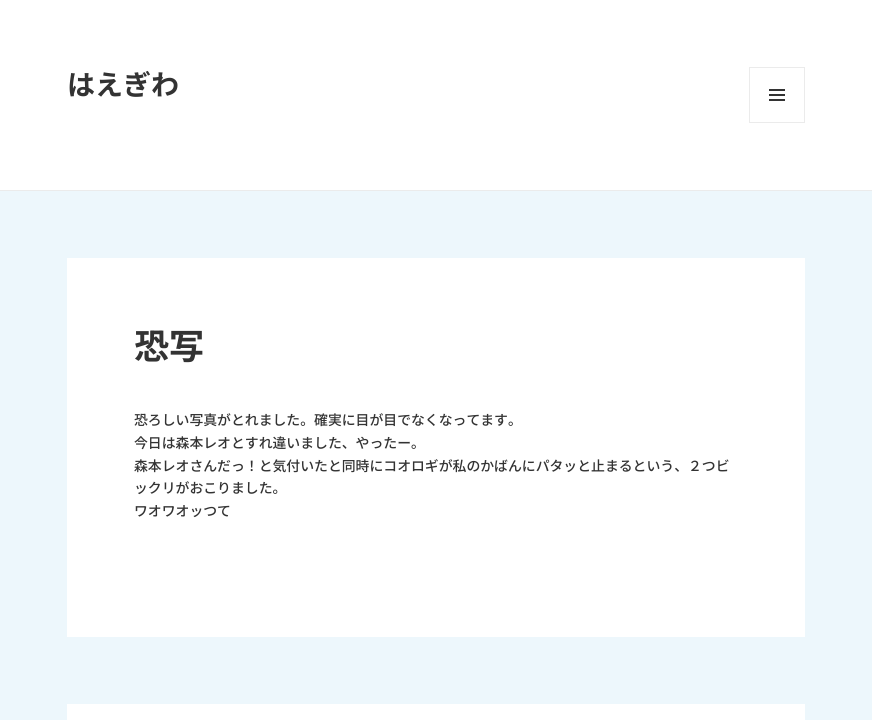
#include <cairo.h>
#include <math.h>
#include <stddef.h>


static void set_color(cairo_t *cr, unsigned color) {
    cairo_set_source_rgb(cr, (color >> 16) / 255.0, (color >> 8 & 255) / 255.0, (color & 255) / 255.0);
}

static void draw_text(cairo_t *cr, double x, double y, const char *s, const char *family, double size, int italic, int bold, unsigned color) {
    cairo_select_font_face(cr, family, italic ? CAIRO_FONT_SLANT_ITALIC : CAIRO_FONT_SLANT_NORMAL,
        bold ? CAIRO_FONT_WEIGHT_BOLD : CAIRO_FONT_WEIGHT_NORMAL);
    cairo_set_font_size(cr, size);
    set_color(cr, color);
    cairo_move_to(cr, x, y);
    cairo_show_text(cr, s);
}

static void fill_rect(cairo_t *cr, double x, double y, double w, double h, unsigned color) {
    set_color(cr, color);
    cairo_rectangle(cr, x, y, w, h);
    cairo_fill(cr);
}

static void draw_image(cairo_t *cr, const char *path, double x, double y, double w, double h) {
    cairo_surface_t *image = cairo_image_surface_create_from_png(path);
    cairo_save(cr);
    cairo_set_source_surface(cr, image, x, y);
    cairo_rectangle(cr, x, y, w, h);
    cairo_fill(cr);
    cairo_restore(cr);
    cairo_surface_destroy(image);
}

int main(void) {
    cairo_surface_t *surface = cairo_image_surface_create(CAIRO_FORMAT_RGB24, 872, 720);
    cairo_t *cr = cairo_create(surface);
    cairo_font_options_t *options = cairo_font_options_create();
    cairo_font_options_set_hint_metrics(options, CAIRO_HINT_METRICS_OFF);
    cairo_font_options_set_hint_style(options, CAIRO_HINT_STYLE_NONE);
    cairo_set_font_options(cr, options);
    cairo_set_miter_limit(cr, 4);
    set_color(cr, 0xEDF7FC);
    cairo_paint(cr);
    fill_rect(cr, 0, 0, 872, 190, 0xFFFFFF);
    fill_rect(cr, 0, 190, 872, 1, 0xEBEBEB);
    draw_text(cr, 67, 95, "はえぎわ", "Noto Sans JP", 28, 0, 1, 0x333333);
    cairo_rectangle(cr, 749.5, 67.5, 55, 55);
    set_color(cr, 0xEBEBEB);
    cairo_set_line_width(cr, 1);
    cairo_stroke(cr);
    draw_image(cr, "assets/img1.png", 769, 89, 16, 12);
    fill_rect(cr, 67, 258, 738, 379, 0xFFFFFF);
    draw_text(cr, 134, 359, "恐写", "Noto Sans JP", 35, 0, 1, 0x333333);
    draw_text(cr, 134, 425, "恐ろしい写真がとれました。確実に目が目でなくなってます。", "Noto Sans JP Medium", 13.85, 0, 0, 0x333333);
    draw_text(cr, 134, 448, "今日は森本レオとすれ違いました、やったー。", "Noto Sans JP Medium", 13.85, 0, 0, 0x333333);
    draw_text(cr, 134, 471, "森本レオさんだっ！と気付いたと同時にコオロギが私のかばんにパタッと止まるという、２つビ", "Noto Sans JP Medium", 13.85, 0, 0, 0x333333);
    draw_text(cr, 134, 493, "ックリがおこりました。", "Noto Sans JP Medium", 13.85, 0, 0, 0x333333);
    draw_text(cr, 134, 516, "ワオワオッつて", "Noto Sans JP Medium", 13.85, 0, 0, 0x333333);
    fill_rect(cr, 67, 704, 738, 16, 0xFFFFFF);
    cairo_surface_write_to_png(surface, "output.png");
    cairo_font_options_destroy(options);
    cairo_destroy(cr);
    cairo_surface_destroy(surface);
    return 0;
}
